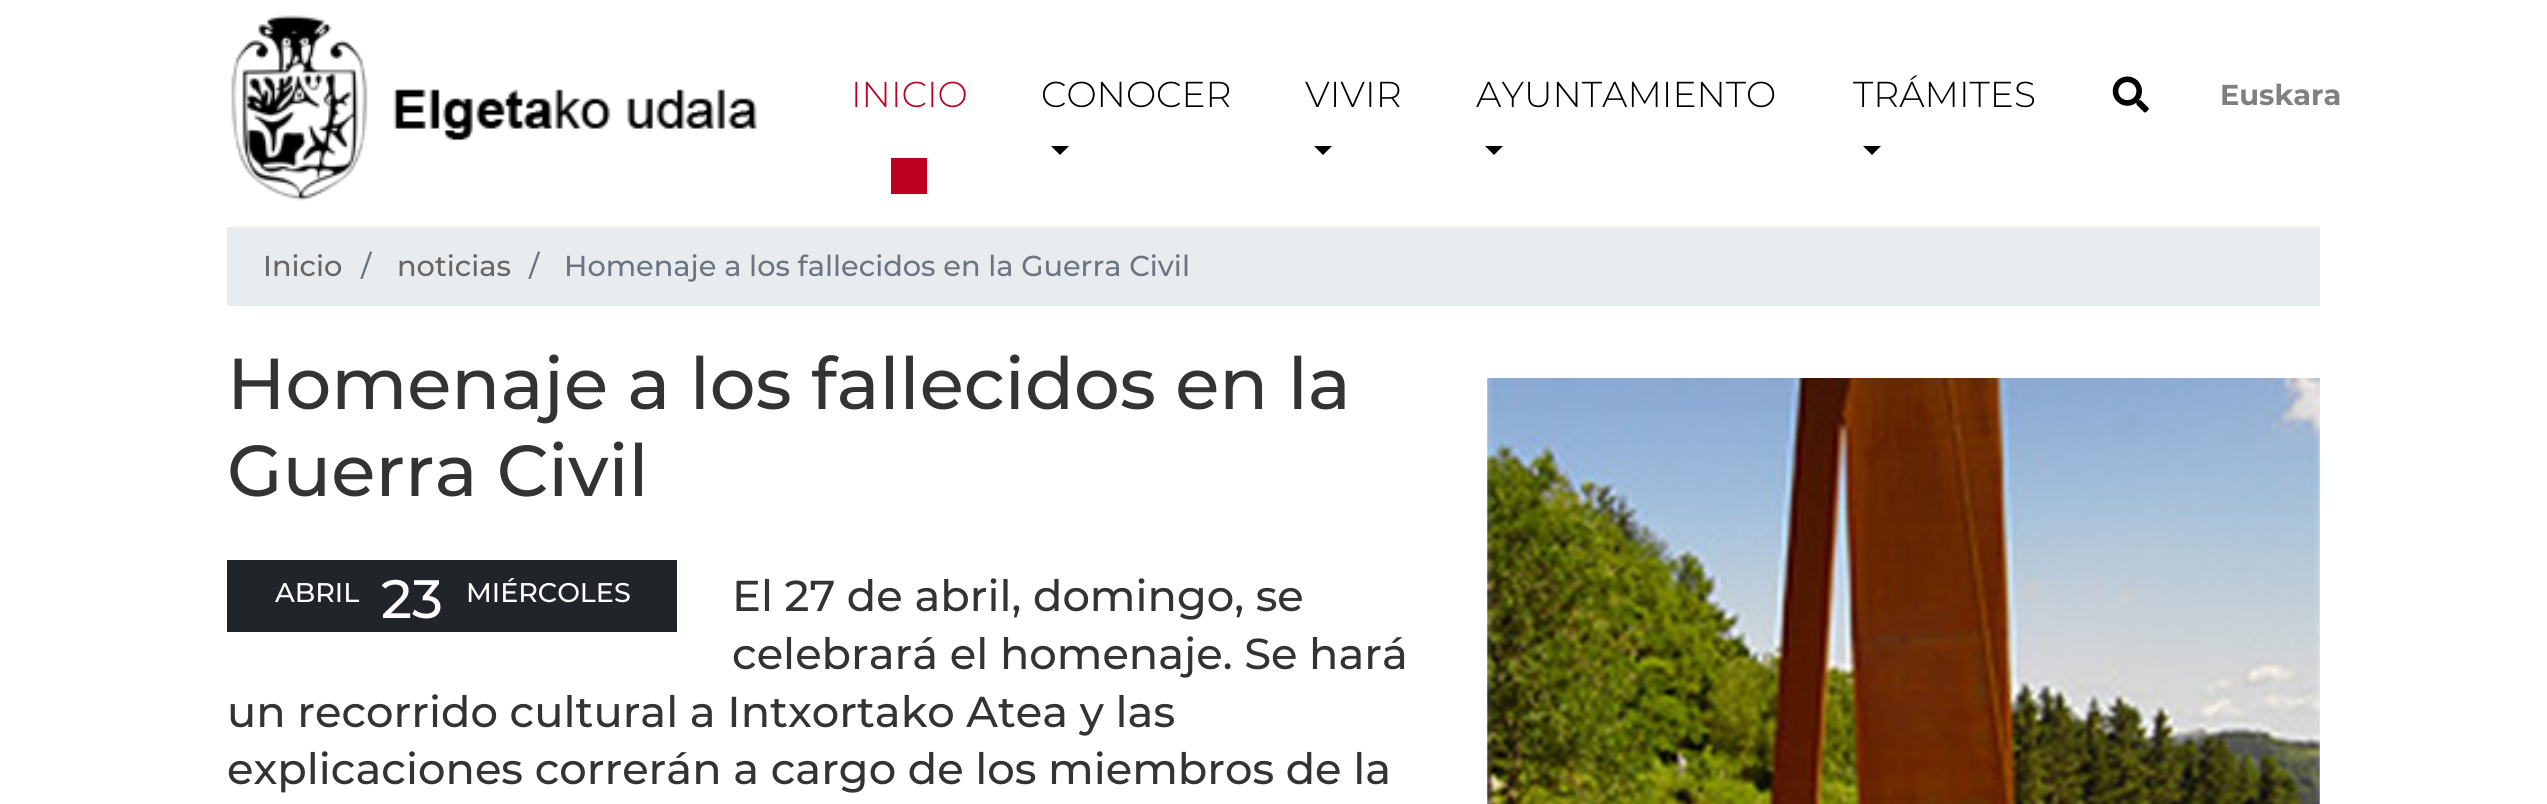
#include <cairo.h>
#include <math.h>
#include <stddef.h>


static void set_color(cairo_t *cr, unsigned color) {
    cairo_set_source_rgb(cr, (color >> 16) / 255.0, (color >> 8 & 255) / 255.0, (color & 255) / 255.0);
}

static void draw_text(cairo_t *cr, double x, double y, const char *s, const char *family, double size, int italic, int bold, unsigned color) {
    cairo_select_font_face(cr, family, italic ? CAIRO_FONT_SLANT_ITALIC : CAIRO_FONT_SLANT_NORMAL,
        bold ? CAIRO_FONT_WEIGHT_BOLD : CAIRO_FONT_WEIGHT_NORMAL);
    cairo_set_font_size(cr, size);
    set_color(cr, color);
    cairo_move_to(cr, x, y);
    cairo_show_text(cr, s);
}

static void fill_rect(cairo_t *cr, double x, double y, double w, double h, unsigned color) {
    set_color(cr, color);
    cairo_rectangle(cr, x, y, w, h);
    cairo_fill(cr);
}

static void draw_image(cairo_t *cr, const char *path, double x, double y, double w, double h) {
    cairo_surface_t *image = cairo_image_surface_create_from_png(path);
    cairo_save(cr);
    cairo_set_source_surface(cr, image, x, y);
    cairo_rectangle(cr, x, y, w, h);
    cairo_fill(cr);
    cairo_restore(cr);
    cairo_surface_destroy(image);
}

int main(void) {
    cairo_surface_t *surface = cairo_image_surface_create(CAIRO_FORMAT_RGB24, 2547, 804);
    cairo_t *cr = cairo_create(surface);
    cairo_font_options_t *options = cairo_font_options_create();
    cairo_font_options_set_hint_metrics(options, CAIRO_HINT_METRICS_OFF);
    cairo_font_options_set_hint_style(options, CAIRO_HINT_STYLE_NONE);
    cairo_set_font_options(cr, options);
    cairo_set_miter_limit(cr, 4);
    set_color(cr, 0xFFFFFF);
    cairo_paint(cr);
    draw_image(cr, "assets/img1.png", 231, 15, 526, 186);
    draw_text(cr, 851, 107, "INICIO", "Montserrat Light", 36, 0, 0, 0xBD0020);
    fill_rect(cr, 891, 158, 36, 36, 0xBD0020);
    draw_text(cr, 1041, 107, "CONOCER", "Montserrat Light", 36, 0, 0, 0x000000);
    cairo_new_path(cr);
    cairo_move_to(cr, 1051, 146);
    cairo_line_to(cr, 1069, 146);
    cairo_line_to(cr, 1060, 155);
    cairo_close_path(cr);
    cairo_fill(cr);
    draw_text(cr, 1305, 107, "VIVIR", "Montserrat Light", 36, 0, 0, 0x000000);
    cairo_new_path(cr);
    cairo_move_to(cr, 1314, 146);
    cairo_line_to(cr, 1332, 146);
    cairo_line_to(cr, 1323, 155);
    cairo_close_path(cr);
    cairo_fill(cr);
    draw_text(cr, 1476, 107, "AYUNTAMIENTO", "Montserrat Light", 36, 0, 0, 0x000000);
    cairo_new_path(cr);
    cairo_move_to(cr, 1485, 146);
    cairo_line_to(cr, 1503, 146);
    cairo_line_to(cr, 1494, 155);
    cairo_close_path(cr);
    cairo_fill(cr);
    draw_text(cr, 1853, 107, "TRÁMITES", "Montserrat Light", 36, 0, 0, 0x000000);
    cairo_new_path(cr);
    cairo_move_to(cr, 1863, 146);
    cairo_line_to(cr, 1881, 146);
    cairo_line_to(cr, 1872, 155);
    cairo_close_path(cr);
    cairo_fill(cr);
    draw_image(cr, "assets/img2.png", 2112, 76, 37, 37);
    draw_text(cr, 2220, 105, "Euskara", "Montserrat", 28.8, 0, 1, 0x808080);
    fill_rect(cr, 227, 227, 2093, 79, 0xE9ECEF);
    draw_text(cr, 263, 276, "Inicio", "Montserrat Medium", 28.8, 0, 0, 0x666666);
    draw_text(cr, 361, 276, "/", "Montserrat Medium", 28.8, 0, 0, 0x6C757D);
    draw_text(cr, 397, 276, "noticias", "Montserrat Medium", 28.8, 0, 0, 0x666666);
    draw_text(cr, 529, 276, "/", "Montserrat Medium", 28.8, 0, 0, 0x6C757D);
    draw_text(cr, 564, 276, "Homenaje a los fallecidos en la Guerra Civil", "Montserrat Medium", 28.8, 0, 0, 0x6C757D);
    draw_text(cr, 227, 409, "Homenaje a los fallecidos en la", "Montserrat Medium", 72, 0, 0, 0x333333);
    draw_text(cr, 227, 496, "Guerra Civil", "Montserrat Medium", 72, 0, 0, 0x333333);
    draw_text(cr, 732, 611, "El 27 de abril, domingo, se", "Montserrat Medium", 43.2, 0, 0, 0x333333);
    draw_text(cr, 732, 669, "celebrará el homenaje. Se hará", "Montserrat Medium", 43.2, 0, 0, 0x333333);
    draw_text(cr, 227, 727, "un recorrido cultural a Intxortako Atea y las", "Montserrat Medium", 43.2, 0, 0, 0x333333);
    draw_text(cr, 227, 784, "explicaciones correrán a cargo de los miembros de la", "Montserrat Medium", 43.2, 0, 0, 0x333333);
    fill_rect(cr, 227, 560, 450, 72, 0x212529);
    draw_text(cr, 275, 602, "ABRIL", "Montserrat Medium", 27, 0, 0, 0xFFFFFF);
    draw_text(cr, 381, 618, "23", "Montserrat Medium", 54, 0, 0, 0xFFFFFF);
    draw_text(cr, 466, 602, "MIÉRCOLES", "Montserrat Medium", 27, 0, 0, 0xFFFFFF);
    draw_image(cr, "assets/img3.png", 1487, 378, 833, 426);
    cairo_surface_write_to_png(surface, "output.png");
    cairo_font_options_destroy(options);
    cairo_destroy(cr);
    cairo_surface_destroy(surface);
    return 0;
}
